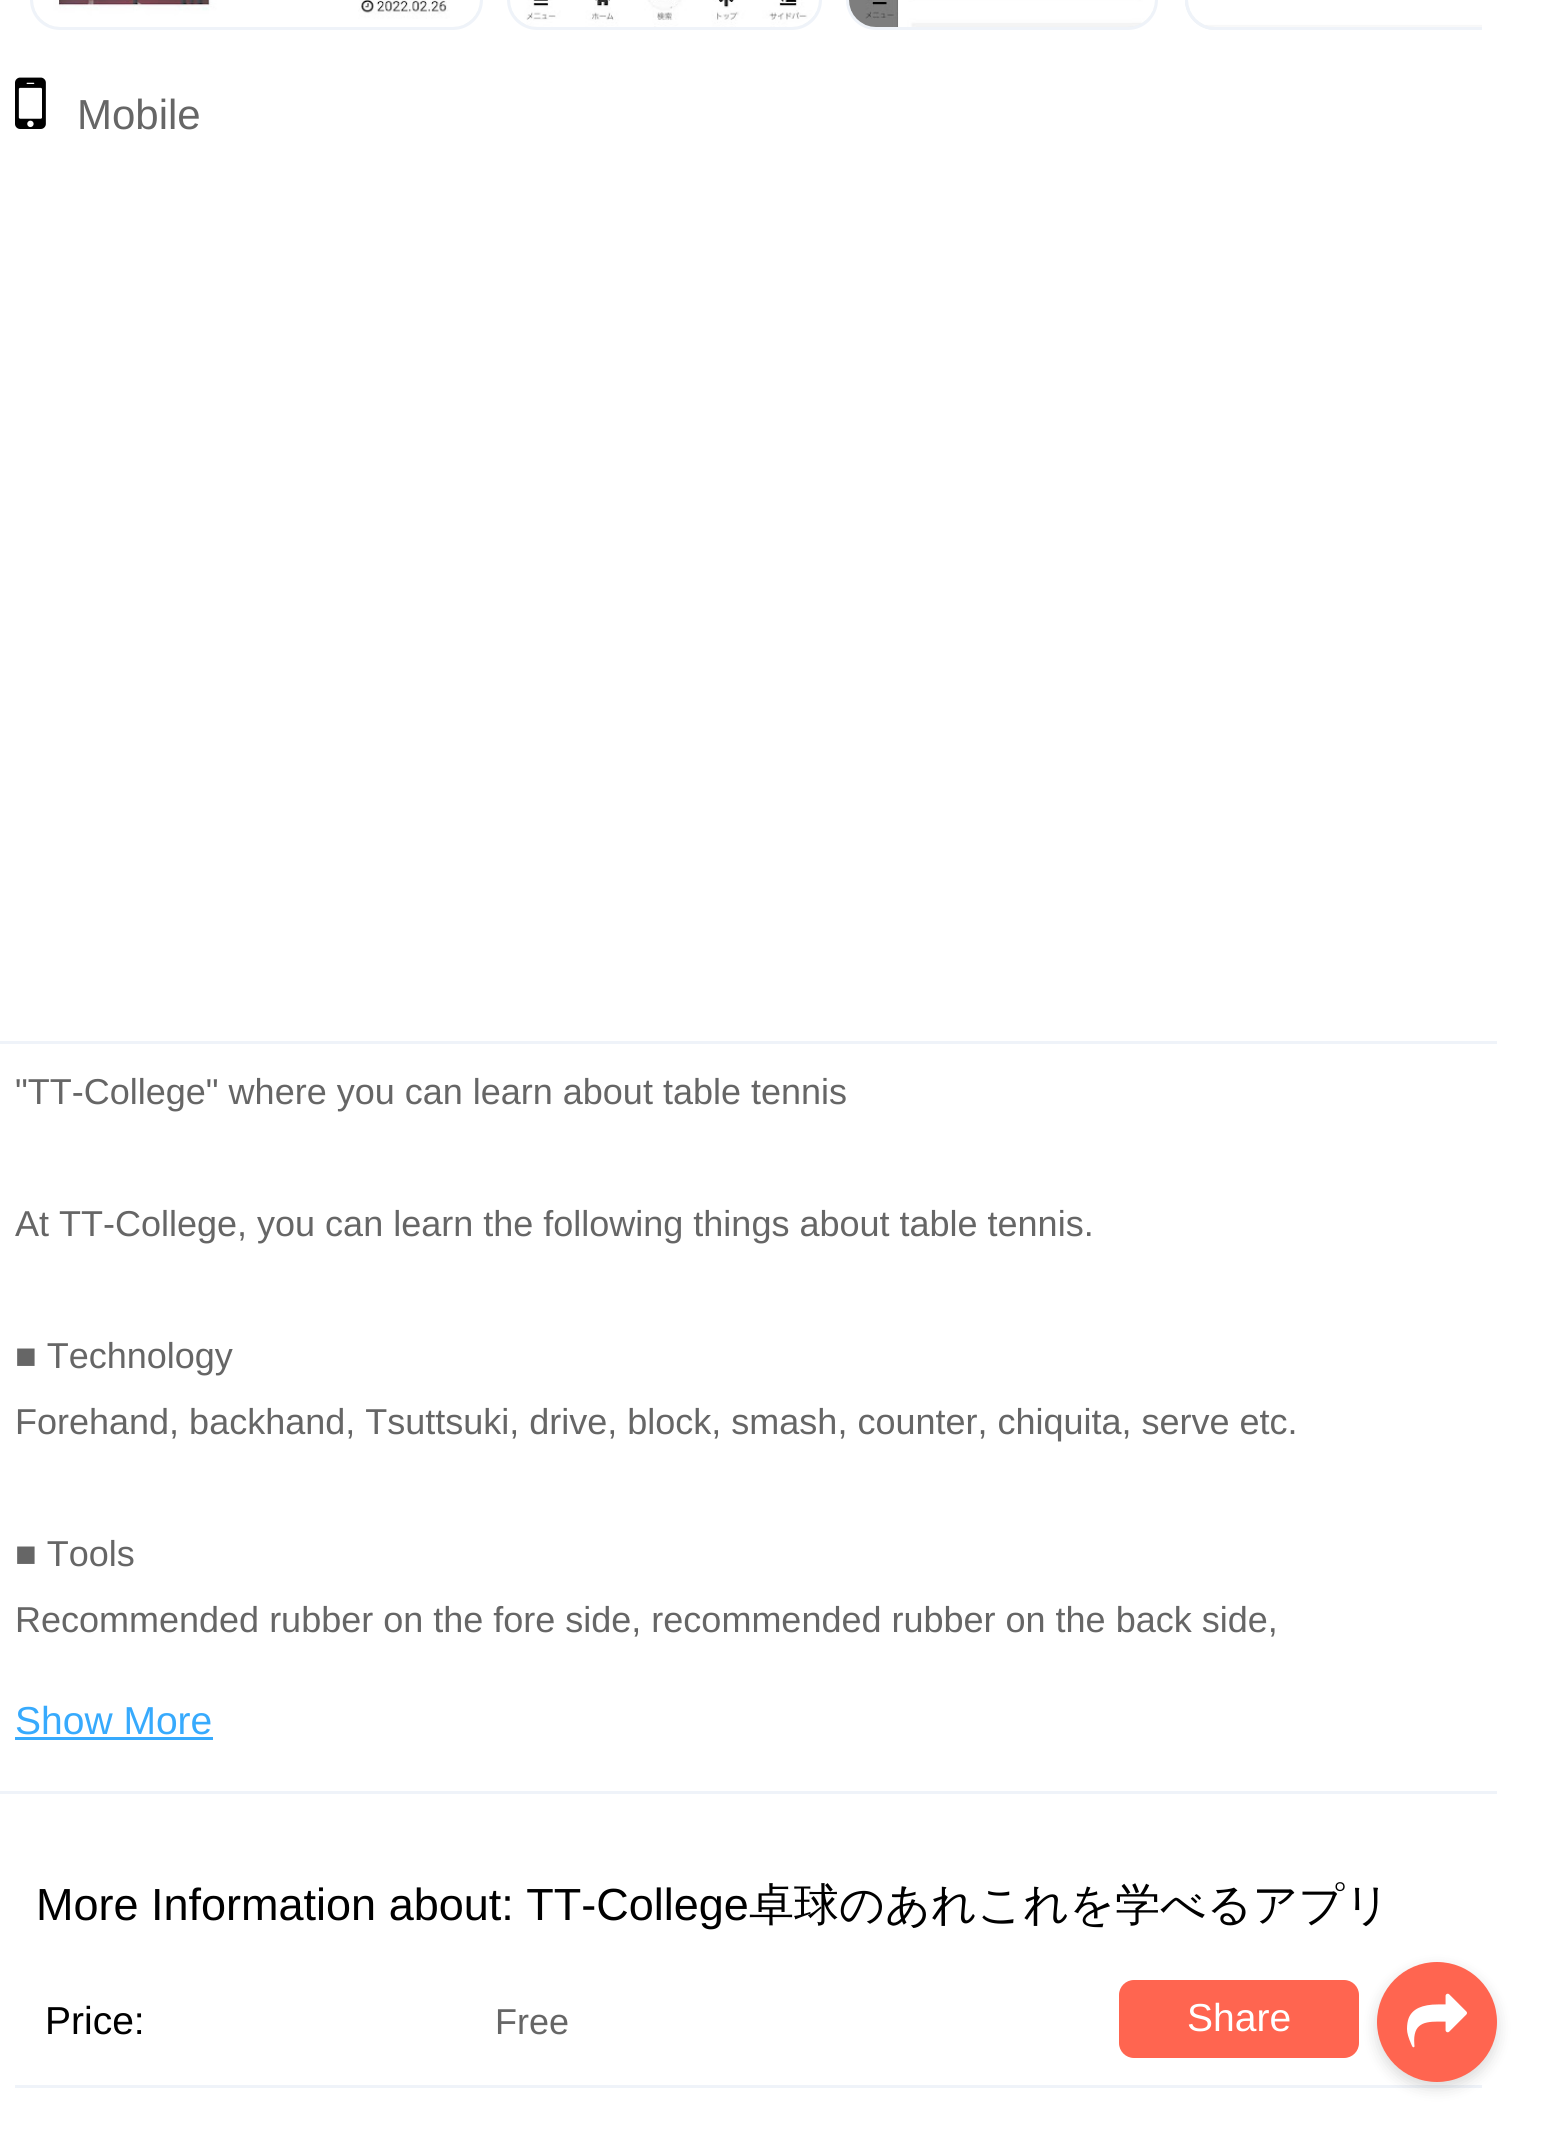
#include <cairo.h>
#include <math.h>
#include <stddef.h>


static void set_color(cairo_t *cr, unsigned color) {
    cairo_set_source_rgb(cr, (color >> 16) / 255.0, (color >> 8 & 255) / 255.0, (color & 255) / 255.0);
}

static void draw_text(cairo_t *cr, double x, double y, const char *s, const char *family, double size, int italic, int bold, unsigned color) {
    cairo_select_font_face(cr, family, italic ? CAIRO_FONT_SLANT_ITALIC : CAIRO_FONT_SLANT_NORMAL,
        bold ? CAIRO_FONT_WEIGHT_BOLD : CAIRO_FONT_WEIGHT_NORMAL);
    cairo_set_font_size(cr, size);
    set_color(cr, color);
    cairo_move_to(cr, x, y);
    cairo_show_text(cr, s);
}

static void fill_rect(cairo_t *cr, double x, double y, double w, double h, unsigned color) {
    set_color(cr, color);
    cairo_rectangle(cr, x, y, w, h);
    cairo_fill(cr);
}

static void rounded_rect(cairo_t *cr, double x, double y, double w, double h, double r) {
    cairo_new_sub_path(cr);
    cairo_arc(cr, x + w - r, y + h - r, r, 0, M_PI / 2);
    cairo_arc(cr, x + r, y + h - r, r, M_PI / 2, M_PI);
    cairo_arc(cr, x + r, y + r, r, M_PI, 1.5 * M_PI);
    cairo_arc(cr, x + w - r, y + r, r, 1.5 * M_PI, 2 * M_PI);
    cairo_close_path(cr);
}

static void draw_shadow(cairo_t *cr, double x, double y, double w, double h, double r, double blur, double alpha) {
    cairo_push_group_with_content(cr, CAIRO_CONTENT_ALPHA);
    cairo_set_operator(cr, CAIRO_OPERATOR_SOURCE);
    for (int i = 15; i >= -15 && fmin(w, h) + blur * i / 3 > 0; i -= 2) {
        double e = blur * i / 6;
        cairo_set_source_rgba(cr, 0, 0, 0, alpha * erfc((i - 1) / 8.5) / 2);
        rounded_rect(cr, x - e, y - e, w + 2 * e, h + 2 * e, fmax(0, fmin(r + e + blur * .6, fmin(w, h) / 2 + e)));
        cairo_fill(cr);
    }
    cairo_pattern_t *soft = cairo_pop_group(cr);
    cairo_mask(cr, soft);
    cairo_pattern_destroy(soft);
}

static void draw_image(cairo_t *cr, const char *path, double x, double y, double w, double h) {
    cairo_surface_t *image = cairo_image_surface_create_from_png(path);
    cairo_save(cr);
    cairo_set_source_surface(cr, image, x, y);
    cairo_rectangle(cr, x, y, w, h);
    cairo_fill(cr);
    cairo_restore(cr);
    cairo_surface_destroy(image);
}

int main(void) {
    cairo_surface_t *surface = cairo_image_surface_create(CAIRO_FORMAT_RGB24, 1555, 2142);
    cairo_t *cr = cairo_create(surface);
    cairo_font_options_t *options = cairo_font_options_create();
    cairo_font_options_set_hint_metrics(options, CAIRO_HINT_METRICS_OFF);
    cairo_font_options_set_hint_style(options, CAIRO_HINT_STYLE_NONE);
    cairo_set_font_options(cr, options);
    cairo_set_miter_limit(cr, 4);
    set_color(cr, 0xFFFFFF);
    cairo_paint(cr);
    set_color(cr, 0xE9EFF2);
    rounded_rect(cr, 31.5, -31.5, 450, 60, 28.5);
    cairo_fill_preserve(cr);
    set_color(cr, 0xEFF3F9);
    cairo_set_line_width(cr, 3);
    cairo_stroke(cr);
    draw_image(cr, "assets/img1.png", 33, 0, 447, 27);
    set_color(cr, 0xE9EFF2);
    rounded_rect(cr, 508.5, -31.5, 312, 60, 28.5);
    cairo_fill_preserve(cr);
    set_color(cr, 0xEFF3F9);
    cairo_stroke(cr);
    draw_image(cr, "assets/img2.png", 510, 0, 309, 27);
    set_color(cr, 0xE9EFF2);
    rounded_rect(cr, 847.5, -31.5, 309, 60, 28.5);
    cairo_fill_preserve(cr);
    set_color(cr, 0xEFF3F9);
    cairo_stroke(cr);
    draw_image(cr, "assets/img3.png", 849, 0, 306, 27);
    set_color(cr, 0xE9EFF2);
    cairo_new_path(cr);
    cairo_move_to(cr, 1215, -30);
    cairo_line_to(cr, 1482, -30);
    cairo_line_to(cr, 1482, 30);
    cairo_line_to(cr, 1215, 30);
    cairo_curve_to(cr, 1198.5, 30, 1185, 16.5, 1185, 0);
    cairo_curve_to(cr, 1185, -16.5, 1198.5, -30, 1215, -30);
    cairo_close_path(cr);
    cairo_fill(cr);
    cairo_save(cr);
    cairo_rectangle(cr, 15, 0, 1467, 51);
    cairo_clip(cr);
    rounded_rect(cr, 1186.5, -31.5, 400, 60, 28.5);
    set_color(cr, 0xEFF3F9);
    cairo_stroke(cr);
    cairo_restore(cr);
    draw_image(cr, "assets/img4.png", 1188, 0, 294, 27);
    draw_image(cr, "assets/img5.png", 15, 77, 31, 52);
    draw_text(cr, 77, 129, "Mobile", "Liberation Sans", 42, 0, 0, 0x666666);
    fill_rect(cr, 0, 1041, 1497, 3, 0xEFF3F9);
    draw_text(cr, 15, 1104, "\"TT-College\" where you can learn about table tennis", "Liberation Sans", 36, 0, 0, 0x666666);
    draw_text(cr, 15, 1236, "At TT-College, you can learn the following things about table tennis.", "Liberation Sans", 36, 0, 0, 0x666666);
    draw_text(cr, 15, 1368, "■ Technology", "Liberation Sans", 36, 0, 0, 0x666666);
    draw_text(cr, 15, 1434, "Forehand, backhand, Tsuttsuki, drive, block, smash, counter, chiquita, serve etc.", "Liberation Sans", 36, 0, 0, 0x666666);
    draw_text(cr, 15, 1566, "■ Tools", "Liberation Sans", 36, 0, 0, 0x666666);
    draw_text(cr, 15, 1632, "Recommended rubber on the fore side, recommended rubber on the back side,", "Liberation Sans", 36, 0, 0, 0x666666);
    draw_text(cr, 15, 1734, "Show More", "Liberation Sans", 39, 0, 0, 0x37AAFD);
    fill_rect(cr, 15, 1737, 198, 3, 0x37AAFD);
    fill_rect(cr, 0, 1791, 1497, 3, 0xEFF3F9);
    draw_text(cr, 36, 1920, "More Information about: TT-College", "Liberation Sans", 45, 0, 0, 0x000000);
    draw_text(cr, 749, 1920, "卓球のあれこれを学べるアプリ", "WenQuanYi Zen Hei Medium", 45, 0, 0, 0x000000);
    fill_rect(cr, 15, 2085, 1467, 3, 0xEFF3F9);
    draw_text(cr, 45, 2034, "Price:", "Liberation Sans", 39, 0, 0, 0x000000);
    draw_text(cr, 495, 2034, "Free", "Liberation Sans", 36, 0, 0, 0x666666);
    set_color(cr, 0xFF6550);
    rounded_rect(cr, 1119, 1980, 240, 78, 15);
    cairo_fill(cr);
    draw_text(cr, 1187, 2031, "Share", "Liberation Sans", 39, 0, 0, 0xFFFFFF);
    set_color(cr, 0x000000);
    draw_shadow(cr, 1377, 1968, 120, 120, 60, 7.5, 0.15);
    set_color(cr, 0xFF6550);
    cairo_arc(cr, 1437, 2022, 60, 0, 2 * M_PI);
    cairo_fill(cr);
    draw_image(cr, "assets/img6.png", 1407, 1993, 60, 55);
    cairo_surface_write_to_png(surface, "output.png");
    cairo_font_options_destroy(options);
    cairo_destroy(cr);
    cairo_surface_destroy(surface);
    return 0;
}
